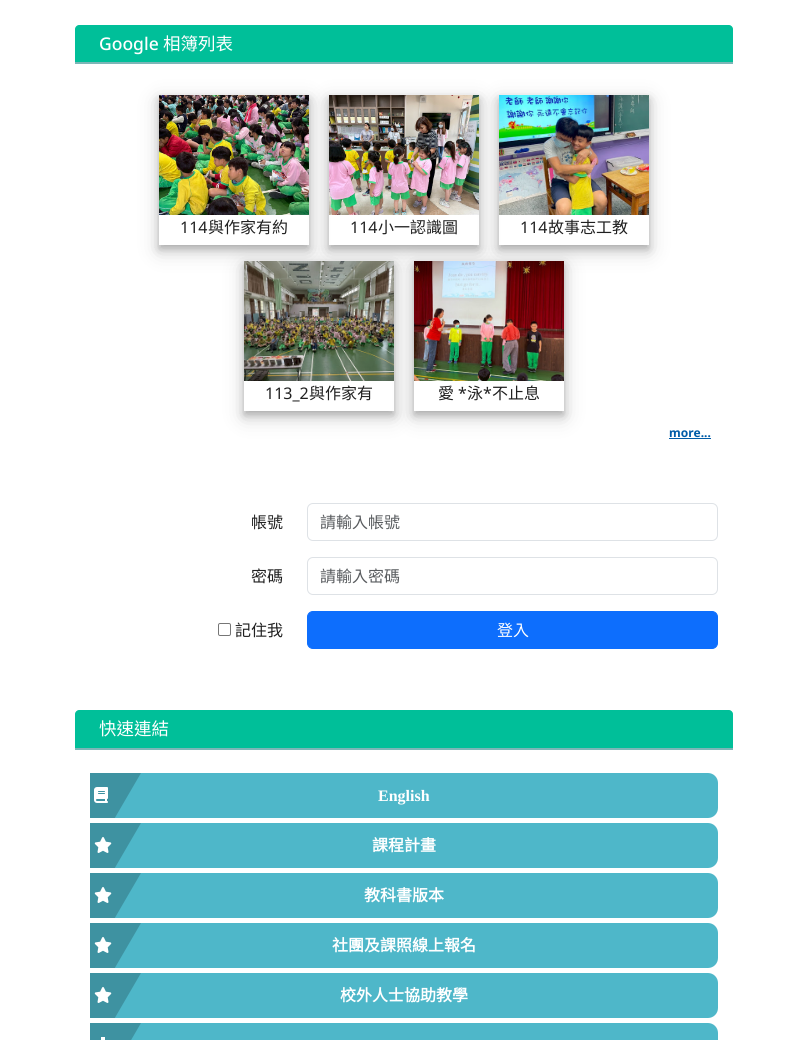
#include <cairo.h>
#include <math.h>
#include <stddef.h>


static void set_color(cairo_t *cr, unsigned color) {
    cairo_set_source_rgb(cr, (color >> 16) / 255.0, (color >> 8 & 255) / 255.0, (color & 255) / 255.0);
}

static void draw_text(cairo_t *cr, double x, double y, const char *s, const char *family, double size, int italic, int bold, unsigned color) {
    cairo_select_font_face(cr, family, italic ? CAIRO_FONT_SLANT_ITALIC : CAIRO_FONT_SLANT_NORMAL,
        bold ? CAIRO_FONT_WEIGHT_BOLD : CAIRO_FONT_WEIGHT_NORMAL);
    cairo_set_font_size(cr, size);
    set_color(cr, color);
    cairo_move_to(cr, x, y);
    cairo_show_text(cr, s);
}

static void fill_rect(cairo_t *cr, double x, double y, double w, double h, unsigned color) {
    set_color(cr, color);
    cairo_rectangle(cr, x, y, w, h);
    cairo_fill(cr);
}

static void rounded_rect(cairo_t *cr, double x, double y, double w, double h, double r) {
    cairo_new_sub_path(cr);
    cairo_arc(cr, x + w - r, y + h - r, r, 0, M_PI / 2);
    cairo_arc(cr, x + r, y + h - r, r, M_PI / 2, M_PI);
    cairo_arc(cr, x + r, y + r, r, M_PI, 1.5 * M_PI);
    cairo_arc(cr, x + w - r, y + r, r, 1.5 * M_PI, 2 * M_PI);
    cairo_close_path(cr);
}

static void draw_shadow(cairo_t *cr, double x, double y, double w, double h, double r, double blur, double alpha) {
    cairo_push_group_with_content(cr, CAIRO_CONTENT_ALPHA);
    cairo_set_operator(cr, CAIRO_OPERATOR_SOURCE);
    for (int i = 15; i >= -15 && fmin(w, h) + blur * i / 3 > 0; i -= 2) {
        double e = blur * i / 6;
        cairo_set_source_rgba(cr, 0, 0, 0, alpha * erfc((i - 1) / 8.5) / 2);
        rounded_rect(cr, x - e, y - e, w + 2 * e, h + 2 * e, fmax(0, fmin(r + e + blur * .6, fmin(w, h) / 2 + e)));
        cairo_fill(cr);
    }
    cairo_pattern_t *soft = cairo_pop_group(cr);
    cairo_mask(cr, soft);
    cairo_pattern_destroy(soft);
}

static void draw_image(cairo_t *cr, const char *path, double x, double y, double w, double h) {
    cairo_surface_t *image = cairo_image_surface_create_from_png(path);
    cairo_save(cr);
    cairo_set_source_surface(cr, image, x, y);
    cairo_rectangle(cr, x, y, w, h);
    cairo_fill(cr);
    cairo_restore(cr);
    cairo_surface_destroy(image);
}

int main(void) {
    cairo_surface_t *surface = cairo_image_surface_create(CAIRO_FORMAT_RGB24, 808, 1040);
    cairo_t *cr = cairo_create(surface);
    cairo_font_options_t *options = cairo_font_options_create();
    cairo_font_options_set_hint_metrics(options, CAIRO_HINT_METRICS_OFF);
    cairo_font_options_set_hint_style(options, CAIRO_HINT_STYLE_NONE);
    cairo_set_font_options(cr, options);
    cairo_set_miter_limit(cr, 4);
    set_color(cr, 0xFFFFFF);
    cairo_paint(cr);
    set_color(cr, 0x00BF99);
    cairo_new_path(cr);
    cairo_move_to(cr, 79, 25);
    cairo_line_to(cr, 729, 25);
    cairo_curve_to(cr, 731, 25, 733, 27, 733, 29);
    cairo_line_to(cr, 733, 64);
    cairo_line_to(cr, 75, 64);
    cairo_line_to(cr, 75, 29);
    cairo_curve_to(cr, 75, 27, 77, 25, 79, 25);
    cairo_close_path(cr);
    cairo_fill(cr);
    fill_rect(cr, 75, 62, 658, 2, 0x7CB6B7);
    draw_text(cr, 99, 50, "Google", "Noto Sans Medium", 17.5, 0, 0, 0xFFFFFF);
    draw_text(cr, 163, 50, "相簿列表", "Noto Sans CJK TC", 17.5, 0, 0, 0xFFFFFF);
    cairo_save(cr);
    cairo_set_fill_rule(cr, CAIRO_FILL_RULE_EVEN_ODD);
    cairo_new_path(cr);
    cairo_move_to(cr, 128, 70);
    cairo_line_to(cr, 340, 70);
    cairo_line_to(cr, 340, 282);
    cairo_line_to(cr, 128, 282);
    cairo_close_path(cr);
    cairo_move_to(cr, 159, 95);
    cairo_line_to(cr, 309, 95);
    cairo_line_to(cr, 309, 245);
    cairo_line_to(cr, 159, 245);
    cairo_close_path(cr);
    cairo_clip(cr);
    set_color(cr, 0x000000);
    draw_shadow(cr, 159, 101, 150, 150, 0, 10, 0.19);
    cairo_restore(cr);
    cairo_save(cr);
    cairo_set_fill_rule(cr, CAIRO_FILL_RULE_EVEN_ODD);
    cairo_new_path(cr);
    cairo_move_to(cr, 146, 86);
    cairo_line_to(cr, 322, 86);
    cairo_line_to(cr, 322, 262);
    cairo_line_to(cr, 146, 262);
    cairo_close_path(cr);
    cairo_move_to(cr, 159, 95);
    cairo_line_to(cr, 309, 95);
    cairo_line_to(cr, 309, 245);
    cairo_line_to(cr, 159, 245);
    cairo_close_path(cr);
    cairo_clip(cr);
    set_color(cr, 0x000000);
    draw_shadow(cr, 159, 99, 150, 150, 0, 4, 0.2);
    cairo_restore(cr);
    draw_image(cr, "assets/img1.png", 159, 95, 150, 120);
    draw_text(cr, 180, 233, "114", "Noto Sans", 16, 0, 0, 0x202020);
    draw_text(cr, 208, 233, "與作家有約", "Noto Sans CJK TC", 16, 0, 0, 0x202020);
    cairo_save(cr);
    cairo_set_fill_rule(cr, CAIRO_FILL_RULE_EVEN_ODD);
    cairo_new_path(cr);
    cairo_move_to(cr, 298, 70);
    cairo_line_to(cr, 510, 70);
    cairo_line_to(cr, 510, 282);
    cairo_line_to(cr, 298, 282);
    cairo_close_path(cr);
    cairo_move_to(cr, 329, 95);
    cairo_line_to(cr, 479, 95);
    cairo_line_to(cr, 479, 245);
    cairo_line_to(cr, 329, 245);
    cairo_close_path(cr);
    cairo_clip(cr);
    set_color(cr, 0x000000);
    draw_shadow(cr, 329, 101, 150, 150, 0, 10, 0.19);
    cairo_restore(cr);
    cairo_save(cr);
    cairo_set_fill_rule(cr, CAIRO_FILL_RULE_EVEN_ODD);
    cairo_new_path(cr);
    cairo_move_to(cr, 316, 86);
    cairo_line_to(cr, 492, 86);
    cairo_line_to(cr, 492, 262);
    cairo_line_to(cr, 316, 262);
    cairo_close_path(cr);
    cairo_move_to(cr, 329, 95);
    cairo_line_to(cr, 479, 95);
    cairo_line_to(cr, 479, 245);
    cairo_line_to(cr, 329, 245);
    cairo_close_path(cr);
    cairo_clip(cr);
    set_color(cr, 0x000000);
    draw_shadow(cr, 329, 99, 150, 150, 0, 4, 0.2);
    cairo_restore(cr);
    draw_image(cr, "assets/img2.png", 329, 95, 150, 120);
    draw_text(cr, 350, 233, "114", "Noto Sans", 16, 0, 0, 0x202020);
    draw_text(cr, 378, 233, "小一認識圖", "Noto Sans CJK TC", 16, 0, 0, 0x202020);
    cairo_save(cr);
    cairo_set_fill_rule(cr, CAIRO_FILL_RULE_EVEN_ODD);
    cairo_new_path(cr);
    cairo_move_to(cr, 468, 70);
    cairo_line_to(cr, 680, 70);
    cairo_line_to(cr, 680, 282);
    cairo_line_to(cr, 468, 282);
    cairo_close_path(cr);
    cairo_move_to(cr, 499, 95);
    cairo_line_to(cr, 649, 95);
    cairo_line_to(cr, 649, 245);
    cairo_line_to(cr, 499, 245);
    cairo_close_path(cr);
    cairo_clip(cr);
    set_color(cr, 0x000000);
    draw_shadow(cr, 499, 101, 150, 150, 0, 10, 0.19);
    cairo_restore(cr);
    cairo_save(cr);
    cairo_set_fill_rule(cr, CAIRO_FILL_RULE_EVEN_ODD);
    cairo_new_path(cr);
    cairo_move_to(cr, 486, 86);
    cairo_line_to(cr, 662, 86);
    cairo_line_to(cr, 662, 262);
    cairo_line_to(cr, 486, 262);
    cairo_close_path(cr);
    cairo_move_to(cr, 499, 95);
    cairo_line_to(cr, 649, 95);
    cairo_line_to(cr, 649, 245);
    cairo_line_to(cr, 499, 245);
    cairo_close_path(cr);
    cairo_clip(cr);
    set_color(cr, 0x000000);
    draw_shadow(cr, 499, 99, 150, 150, 0, 4, 0.2);
    cairo_restore(cr);
    draw_image(cr, "assets/img3.png", 499, 95, 150, 120);
    draw_text(cr, 520, 233, "114", "Noto Sans", 16, 0, 0, 0x202020);
    draw_text(cr, 548, 233, "故事志工教", "Noto Sans CJK TC", 16, 0, 0, 0x202020);
    set_color(cr, 0x000000);
    draw_shadow(cr, 244, 267, 150, 150, 0, 10, 0.19);
    draw_shadow(cr, 244, 265, 150, 150, 0, 4, 0.2);
    fill_rect(cr, 244, 381, 150, 30, 0xFFFFFF);
    draw_image(cr, "assets/img4.png", 244, 261, 150, 120);
    draw_text(cr, 265, 399, "113_2", "Noto Sans", 16, 0, 0, 0x202020);
    draw_text(cr, 309, 399, "與作家有", "Noto Sans CJK TC", 16, 0, 0, 0x202020);
    set_color(cr, 0x000000);
    draw_shadow(cr, 414, 267, 150, 150, 0, 10, 0.19);
    draw_shadow(cr, 414, 265, 150, 150, 0, 4, 0.2);
    fill_rect(cr, 414, 381, 150, 30, 0xFFFFFF);
    draw_image(cr, "assets/img5.png", 414, 261, 150, 120);
    draw_text(cr, 438, 399, "愛", "Noto Sans CJK TC", 16, 0, 0, 0x202020);
    draw_text(cr, 458, 399, "*", "Noto Sans", 16, 0, 0, 0x202020);
    draw_text(cr, 467, 399, "泳", "Noto Sans CJK TC", 16, 0, 0, 0x202020);
    draw_text(cr, 483, 399, "*", "Noto Sans", 16, 0, 0, 0x202020);
    draw_text(cr, 492, 399, "不止息", "Noto Sans CJK TC", 16, 0, 0, 0x202020);
    draw_text(cr, 669, 437, "more...", "Noto Sans", 12, 0, 1, 0x005CA8);
    fill_rect(cr, 669, 438, 42, 1, 0x005CA8);
    draw_text(cr, 251, 528, "帳號", "Noto Sans CJK TC", 16, 0, 0, 0x202020);
    rounded_rect(cr, 307.5, 503.5, 410, 37, 5.5);
    set_color(cr, 0xDEE2E6);
    cairo_set_line_width(cr, 1);
    cairo_stroke(cr);
    draw_text(cr, 320, 528, "請輸入帳號", "Noto Sans CJK TC", 16, 0, 0, 0x595C5F);
    draw_text(cr, 251, 582, "密碼", "Noto Sans CJK TC", 16, 0, 0, 0x202020);
    rounded_rect(cr, 307.5, 557.5, 410, 37, 5.5);
    set_color(cr, 0xDEE2E6);
    cairo_stroke(cr);
    draw_text(cr, 320, 582, "請輸入密碼", "Noto Sans CJK TC", 16, 0, 0, 0x595C5F);
    rounded_rect(cr, 218.5, 623.5, 12, 12, 1.5);
    set_color(cr, 0x767676);
    cairo_stroke(cr);
    draw_text(cr, 235, 636, "記住我", "Noto Sans CJK TC", 16, 0, 0, 0x202020);
    set_color(cr, 0x0D6EFD);
    rounded_rect(cr, 307.5, 611.5, 410, 37, 5.5);
    cairo_fill_preserve(cr);
    cairo_stroke(cr);
    draw_text(cr, 497, 636, "登入", "Noto Sans CJK TC", 16, 0, 0, 0xFFFFFF);
    set_color(cr, 0x00BF99);
    cairo_new_path(cr);
    cairo_move_to(cr, 79, 710);
    cairo_line_to(cr, 729, 710);
    cairo_curve_to(cr, 731, 710, 733, 712, 733, 714);
    cairo_line_to(cr, 733, 750);
    cairo_line_to(cr, 75, 750);
    cairo_line_to(cr, 75, 714);
    cairo_curve_to(cr, 75, 712, 77, 710, 79, 710);
    cairo_close_path(cr);
    cairo_fill(cr);
    fill_rect(cr, 75, 748, 658, 2, 0x7CB6B7);
    draw_text(cr, 99, 735, "快速連結", "Noto Sans CJK TC", 17.5, 0, 0, 0xFFFFFF);
    set_color(cr, 0x4EB7C9);
    cairo_new_path(cr);
    cairo_move_to(cr, 90, 773);
    cairo_line_to(cr, 708, 773);
    cairo_curve_to(cr, 713.5, 773, 718, 777.5, 718, 783);
    cairo_line_to(cr, 718, 808);
    cairo_curve_to(cr, 718, 813.5, 713.5, 818, 708, 818);
    cairo_line_to(cr, 90, 818);
    cairo_close_path(cr);
    cairo_fill(cr);
    cairo_save(cr);
    cairo_rectangle(cr, 90, 773, 628, 45);
    cairo_clip(cr);
    set_color(cr, 0x3E92A1);
    cairo_new_path(cr);
    cairo_move_to(cr, 75, 825);
    cairo_line_to(cr, 75, 797);
    cairo_line_to(cr, 102, 750);
    cairo_line_to(cr, 141, 773);
    cairo_line_to(cr, 102, 840);
    cairo_close_path(cr);
    cairo_fill(cr);
    cairo_restore(cr);
    draw_image(cr, "assets/img6.png", 94, 787, 14, 16);
    draw_text(cr, 378, 801, "English", "Liberation Serif", 16, 0, 1, 0xFFFFFF);
    set_color(cr, 0x4EB7C9);
    cairo_new_path(cr);
    cairo_move_to(cr, 90, 823);
    cairo_line_to(cr, 708, 823);
    cairo_curve_to(cr, 713.5, 823, 718, 827.5, 718, 833);
    cairo_line_to(cr, 718, 858);
    cairo_curve_to(cr, 718, 863.5, 713.5, 868, 708, 868);
    cairo_line_to(cr, 90, 868);
    cairo_close_path(cr);
    cairo_fill(cr);
    cairo_save(cr);
    cairo_rectangle(cr, 90, 823, 628, 45);
    cairo_clip(cr);
    set_color(cr, 0x3E92A1);
    cairo_new_path(cr);
    cairo_move_to(cr, 75, 875);
    cairo_line_to(cr, 75, 847);
    cairo_line_to(cr, 102, 800);
    cairo_line_to(cr, 141, 823);
    cairo_line_to(cr, 102, 890);
    cairo_close_path(cr);
    cairo_fill(cr);
    cairo_restore(cr);
    draw_image(cr, "assets/img7.png", 94, 837, 18, 16);
    draw_text(cr, 372, 851, "課程計畫", "Noto Sans CJK TC", 16, 0, 1, 0xFFFFFF);
    set_color(cr, 0x4EB7C9);
    cairo_new_path(cr);
    cairo_move_to(cr, 90, 873);
    cairo_line_to(cr, 708, 873);
    cairo_curve_to(cr, 713.5, 873, 718, 877.5, 718, 883);
    cairo_line_to(cr, 718, 908);
    cairo_curve_to(cr, 718, 913.5, 713.5, 918, 708, 918);
    cairo_line_to(cr, 90, 918);
    cairo_close_path(cr);
    cairo_fill(cr);
    cairo_save(cr);
    cairo_rectangle(cr, 90, 873, 628, 45);
    cairo_clip(cr);
    set_color(cr, 0x3E92A1);
    cairo_new_path(cr);
    cairo_move_to(cr, 75, 925);
    cairo_line_to(cr, 75, 897);
    cairo_line_to(cr, 102, 850);
    cairo_line_to(cr, 141, 873);
    cairo_line_to(cr, 102, 940);
    cairo_close_path(cr);
    cairo_fill(cr);
    cairo_restore(cr);
    draw_image(cr, "assets/img7.png", 94, 887, 18, 16);
    draw_text(cr, 364, 901, "教科書版本", "Noto Sans CJK TC", 16, 0, 1, 0xFFFFFF);
    set_color(cr, 0x4EB7C9);
    cairo_new_path(cr);
    cairo_move_to(cr, 90, 923);
    cairo_line_to(cr, 708, 923);
    cairo_curve_to(cr, 713.5, 923, 718, 927.5, 718, 933);
    cairo_line_to(cr, 718, 958);
    cairo_curve_to(cr, 718, 963.5, 713.5, 968, 708, 968);
    cairo_line_to(cr, 90, 968);
    cairo_close_path(cr);
    cairo_fill(cr);
    cairo_save(cr);
    cairo_rectangle(cr, 90, 923, 628, 45);
    cairo_clip(cr);
    set_color(cr, 0x3E92A1);
    cairo_new_path(cr);
    cairo_move_to(cr, 75, 975);
    cairo_line_to(cr, 75, 947);
    cairo_line_to(cr, 102, 900);
    cairo_line_to(cr, 141, 923);
    cairo_line_to(cr, 102, 990);
    cairo_close_path(cr);
    cairo_fill(cr);
    cairo_restore(cr);
    draw_image(cr, "assets/img7.png", 94, 937, 18, 16);
    draw_text(cr, 332, 951, "社團及課照線上報名", "Noto Sans CJK TC", 16, 0, 1, 0xFFFFFF);
    set_color(cr, 0x4EB7C9);
    cairo_new_path(cr);
    cairo_move_to(cr, 90, 973);
    cairo_line_to(cr, 708, 973);
    cairo_curve_to(cr, 713.5, 973, 718, 977.5, 718, 983);
    cairo_line_to(cr, 718, 1008);
    cairo_curve_to(cr, 718, 1013.5, 713.5, 1018, 708, 1018);
    cairo_line_to(cr, 90, 1018);
    cairo_close_path(cr);
    cairo_fill(cr);
    cairo_save(cr);
    cairo_rectangle(cr, 90, 973, 628, 45);
    cairo_clip(cr);
    set_color(cr, 0x3E92A1);
    cairo_new_path(cr);
    cairo_move_to(cr, 75, 1025);
    cairo_line_to(cr, 75, 997);
    cairo_line_to(cr, 102, 950);
    cairo_line_to(cr, 141, 973);
    cairo_line_to(cr, 102, 1040);
    cairo_close_path(cr);
    cairo_fill(cr);
    cairo_restore(cr);
    draw_image(cr, "assets/img7.png", 94, 987, 18, 16);
    draw_text(cr, 340, 1001, "校外人士協助教學", "Noto Sans CJK TC", 16, 0, 1, 0xFFFFFF);
    set_color(cr, 0x4EB7C9);
    cairo_new_path(cr);
    cairo_move_to(cr, 90, 1023);
    cairo_line_to(cr, 708, 1023);
    cairo_curve_to(cr, 713.5, 1023, 718, 1027.5, 718, 1033);
    cairo_line_to(cr, 718, 1040);
    cairo_curve_to(cr, 718, 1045.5, 713.5, 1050, 708, 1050);
    cairo_line_to(cr, 90, 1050);
    cairo_close_path(cr);
    cairo_fill(cr);
    cairo_save(cr);
    cairo_rectangle(cr, 90, 1023, 628, 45);
    cairo_clip(cr);
    set_color(cr, 0x3E92A1);
    cairo_new_path(cr);
    cairo_move_to(cr, 75, 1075);
    cairo_line_to(cr, 75, 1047);
    cairo_line_to(cr, 102, 1000);
    cairo_line_to(cr, 141, 1023);
    cairo_line_to(cr, 102, 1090);
    cairo_close_path(cr);
    cairo_fill(cr);
    cairo_restore(cr);
    fill_rect(cr, 101, 1037, 4, 3, 0xFFFFFF);
    cairo_surface_write_to_png(surface, "output.png");
    cairo_font_options_destroy(options);
    cairo_destroy(cr);
    cairo_surface_destroy(surface);
    return 0;
}
